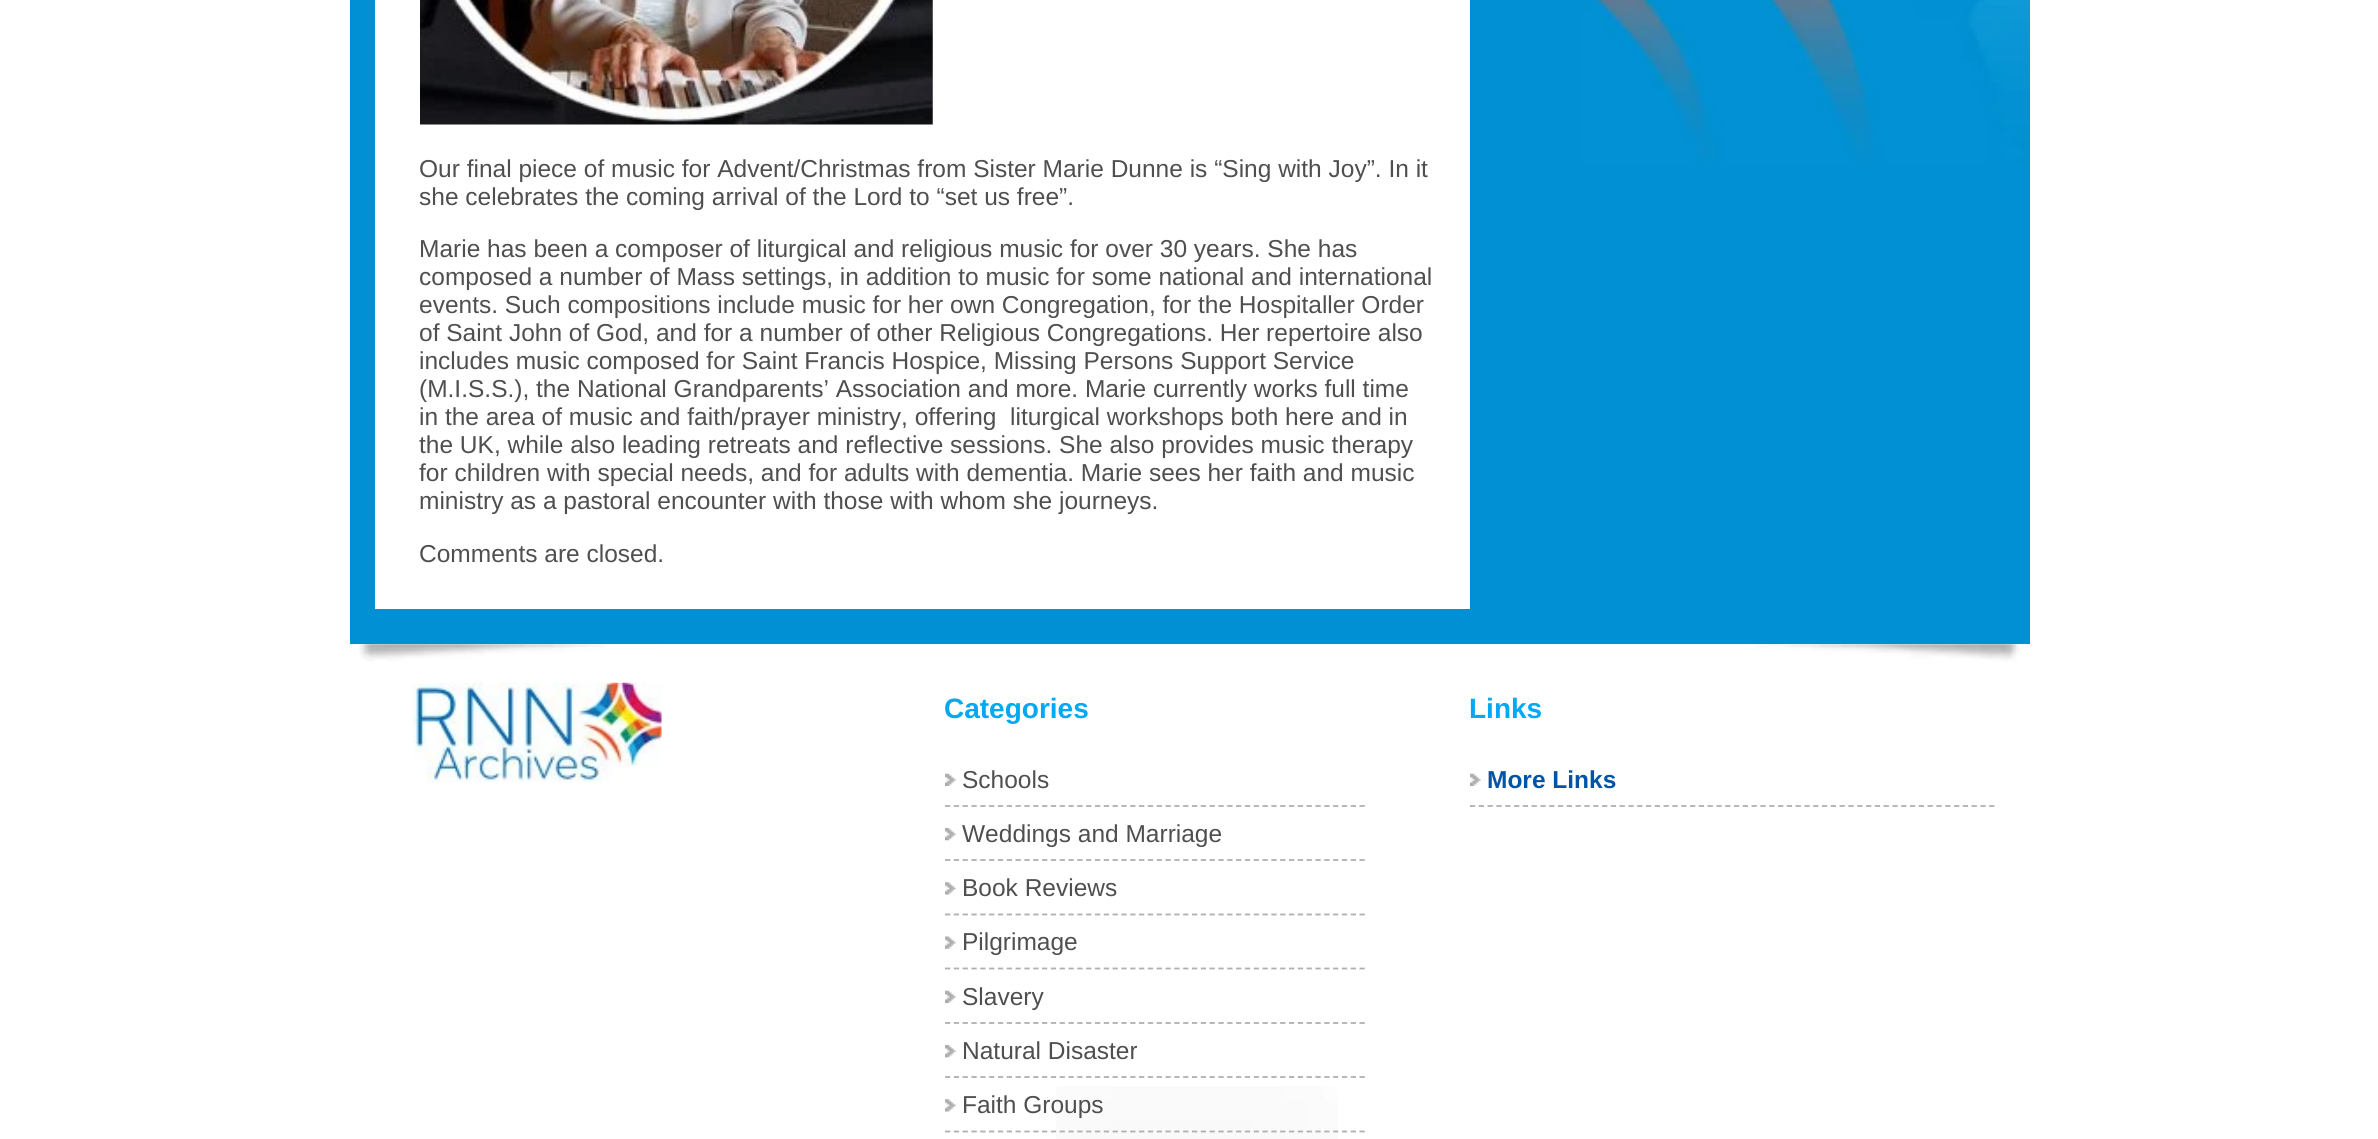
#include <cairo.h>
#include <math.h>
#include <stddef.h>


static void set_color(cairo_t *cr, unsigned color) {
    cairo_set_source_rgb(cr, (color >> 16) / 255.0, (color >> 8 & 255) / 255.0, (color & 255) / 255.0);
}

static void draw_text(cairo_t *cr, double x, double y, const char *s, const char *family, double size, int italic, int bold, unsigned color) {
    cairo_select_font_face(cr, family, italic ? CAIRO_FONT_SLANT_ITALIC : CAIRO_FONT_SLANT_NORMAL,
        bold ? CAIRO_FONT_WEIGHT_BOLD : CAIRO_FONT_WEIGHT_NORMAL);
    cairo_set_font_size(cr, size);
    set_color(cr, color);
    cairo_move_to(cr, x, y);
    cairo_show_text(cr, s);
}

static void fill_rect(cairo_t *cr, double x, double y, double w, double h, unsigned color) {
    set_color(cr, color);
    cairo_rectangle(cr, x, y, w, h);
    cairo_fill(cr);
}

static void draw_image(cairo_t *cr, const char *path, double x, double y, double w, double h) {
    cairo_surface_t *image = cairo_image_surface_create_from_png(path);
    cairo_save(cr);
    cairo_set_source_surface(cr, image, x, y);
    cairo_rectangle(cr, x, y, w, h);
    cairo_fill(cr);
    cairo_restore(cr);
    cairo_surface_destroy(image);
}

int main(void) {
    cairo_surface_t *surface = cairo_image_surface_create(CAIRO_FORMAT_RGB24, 2378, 1139);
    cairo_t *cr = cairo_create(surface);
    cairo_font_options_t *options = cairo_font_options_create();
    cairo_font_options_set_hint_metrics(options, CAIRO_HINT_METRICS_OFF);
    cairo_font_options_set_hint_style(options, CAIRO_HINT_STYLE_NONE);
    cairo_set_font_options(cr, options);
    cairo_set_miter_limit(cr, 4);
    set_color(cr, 0xFFFFFF);
    cairo_paint(cr);
    fill_rect(cr, 350, 0, 1680, 644, 0x0090D3);
    draw_image(cr, "assets/img1.png", 1582, 0, 448, 163);
    fill_rect(cr, 375, 0, 1095, 609, 0xFFFFFF);
    draw_image(cr, "assets/img2.png", 420, 0, 513, 125);
    draw_text(cr, 419, 177, "Our final piece of music for Advent/Christmas from Sister Marie Dunne is “Sing with Joy”. In it", "Liberation Sans", 24.5, 0, 0, 0x4F4F4F);
    draw_text(cr, 419, 205, "she celebrates the coming arrival of the Lord to “set us free”.", "Liberation Sans", 24.5, 0, 0, 0x4F4F4F);
    draw_text(cr, 419, 257, "Marie has been a composer of liturgical and religious music for over 30 years. She has", "Liberation Sans", 24.5, 0, 0, 0x4F4F4F);
    draw_text(cr, 419, 285, "composed a number of Mass settings, in addition to music for some national and international", "Liberation Sans", 24.5, 0, 0, 0x4F4F4F);
    draw_text(cr, 419, 313, "events. Such compositions include music for her own Congregation, for the Hospitaller Order", "Liberation Sans", 24.5, 0, 0, 0x4F4F4F);
    draw_text(cr, 419, 341, "of Saint John of God, and for a number of other Religious Congregations. Her repertoire also", "Liberation Sans", 24.5, 0, 0, 0x4F4F4F);
    draw_text(cr, 419, 369, "includes music composed for Saint Francis Hospice, Missing Persons Support Service", "Liberation Sans", 24.5, 0, 0, 0x4F4F4F);
    draw_text(cr, 419, 397, "(M.I.S.S.), the National Grandparents’ Association and more. Marie currently works full time", "Liberation Sans", 24.5, 0, 0, 0x4F4F4F);
    draw_text(cr, 419, 425, "in the area of music and faith/prayer ministry, offering  liturgical workshops both here and in", "Liberation Sans", 24.5, 0, 0, 0x4F4F4F);
    draw_text(cr, 419, 453, "the UK, while also leading retreats and reflective sessions. She also provides music therapy", "Liberation Sans", 24.5, 0, 0, 0x4F4F4F);
    draw_text(cr, 419, 481, "for children with special needs, and for adults with dementia. Marie sees her faith and music", "Liberation Sans", 24.5, 0, 0, 0x4F4F4F);
    draw_text(cr, 419, 509, "ministry as a pastoral encounter with those with whom she journeys.", "Liberation Sans", 24.5, 0, 0, 0x4F4F4F);
    draw_text(cr, 419, 562, "Comments are closed.", "Liberation Sans", 24.5, 0, 0, 0x4F4F4F);
    draw_image(cr, "assets/img3.png", 359, 644, 1662, 18);
    draw_image(cr, "assets/img4.png", 1056, 1086, 282, 53);
    draw_image(cr, "assets/img5.png", 413, 682, 249, 101);
    draw_text(cr, 944, 718, "Categories", "Liberation Sans", 28, 0, 1, 0x00A9F1);
    draw_image(cr, "assets/img6.png", 945, 773, 11, 13);
    cairo_new_path(cr);
    cairo_move_to(cr, 945, 806);
    cairo_line_to(cr, 1365, 806);
    set_color(cr, 0xAFAFAF);
    cairo_set_line_width(cr, 1.8);
    cairo_set_dash(cr, (double[]){5.25, 3.57}, 2, 0);
    cairo_stroke(cr);
    draw_text(cr, 962, 788, "Schools", "Liberation Sans", 24.5, 0, 0, 0x4F4F4F);
    draw_image(cr, "assets/img7.png", 945, 828, 11, 13);
    cairo_new_path(cr);
    cairo_move_to(cr, 945, 860);
    cairo_line_to(cr, 1365, 860);
    set_color(cr, 0xAFAFAF);
    cairo_stroke(cr);
    draw_text(cr, 962, 842, "Weddings and Marriage", "Liberation Sans", 24.5, 0, 0, 0x4F4F4F);
    draw_image(cr, "assets/img8.png", 945, 882, 11, 13);
    cairo_new_path(cr);
    cairo_move_to(cr, 945, 914.5);
    cairo_line_to(cr, 1365, 914.5);
    set_color(cr, 0xAFAFAF);
    cairo_stroke(cr);
    draw_text(cr, 962, 896, "Book Reviews", "Liberation Sans", 24.5, 0, 0, 0x4F4F4F);
    draw_image(cr, "assets/img9.png", 945, 936, 11, 13);
    cairo_new_path(cr);
    cairo_move_to(cr, 945, 968.5);
    cairo_line_to(cr, 1365, 968.5);
    set_color(cr, 0xAFAFAF);
    cairo_stroke(cr);
    draw_text(cr, 962, 950, "Pilgrimage", "Liberation Sans", 24.5, 0, 0, 0x4F4F4F);
    draw_image(cr, "assets/img10.png", 945, 990, 11, 13);
    cairo_new_path(cr);
    cairo_move_to(cr, 945, 1023);
    cairo_line_to(cr, 1365, 1023);
    set_color(cr, 0xAFAFAF);
    cairo_stroke(cr);
    draw_text(cr, 962, 1005, "Slavery", "Liberation Sans", 24.5, 0, 0, 0x4F4F4F);
    draw_image(cr, "assets/img11.png", 945, 1045, 11, 13);
    cairo_new_path(cr);
    cairo_move_to(cr, 945, 1077);
    cairo_line_to(cr, 1365, 1077);
    set_color(cr, 0xAFAFAF);
    cairo_stroke(cr);
    draw_text(cr, 962, 1059, "Natural Disaster", "Liberation Sans", 24.5, 0, 0, 0x4F4F4F);
    draw_image(cr, "assets/img8.png", 945, 1099, 11, 13);
    cairo_new_path(cr);
    cairo_move_to(cr, 945, 1131.5);
    cairo_line_to(cr, 1365, 1131.5);
    set_color(cr, 0xAFAFAF);
    cairo_stroke(cr);
    draw_text(cr, 962, 1113, "Faith Groups", "Liberation Sans", 24.5, 0, 0, 0x4F4F4F);
    draw_text(cr, 1469, 718, "Links", "Liberation Sans", 28, 0, 1, 0x00A9F1);
    draw_image(cr, "assets/img6.png", 1470, 773, 11, 13);
    cairo_new_path(cr);
    cairo_move_to(cr, 1470, 806);
    cairo_line_to(cr, 1995, 806);
    set_color(cr, 0xAFAFAF);
    cairo_set_dash(cr, (double[]){5.25, 3.55}, 2, 0);
    cairo_stroke(cr);
    draw_text(cr, 1487, 788, "More Links", "Liberation Sans", 24.5, 0, 1, 0x0054A6);
    cairo_surface_write_to_png(surface, "output.png");
    cairo_font_options_destroy(options);
    cairo_destroy(cr);
    cairo_surface_destroy(surface);
    return 0;
}
